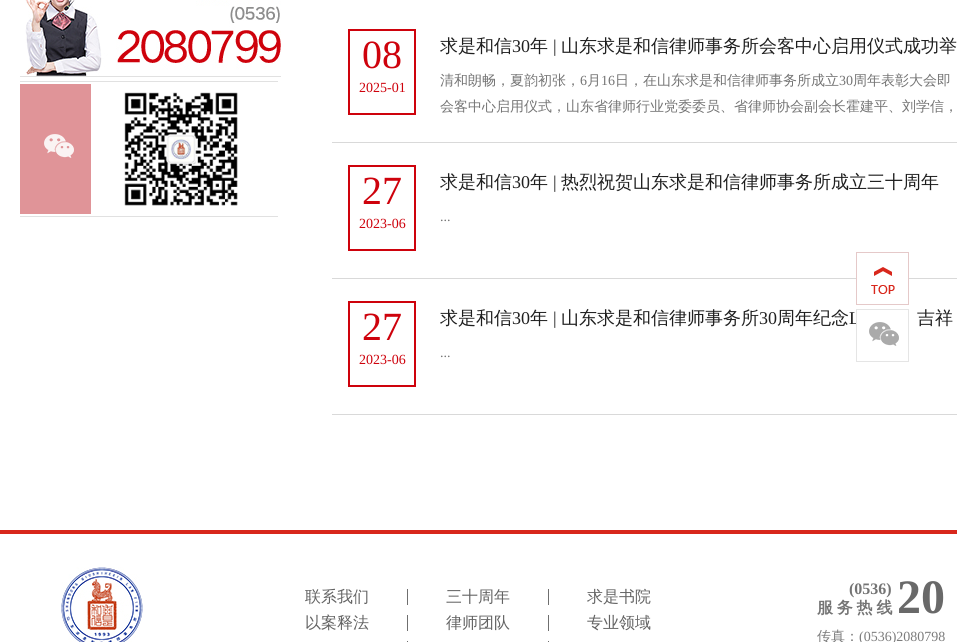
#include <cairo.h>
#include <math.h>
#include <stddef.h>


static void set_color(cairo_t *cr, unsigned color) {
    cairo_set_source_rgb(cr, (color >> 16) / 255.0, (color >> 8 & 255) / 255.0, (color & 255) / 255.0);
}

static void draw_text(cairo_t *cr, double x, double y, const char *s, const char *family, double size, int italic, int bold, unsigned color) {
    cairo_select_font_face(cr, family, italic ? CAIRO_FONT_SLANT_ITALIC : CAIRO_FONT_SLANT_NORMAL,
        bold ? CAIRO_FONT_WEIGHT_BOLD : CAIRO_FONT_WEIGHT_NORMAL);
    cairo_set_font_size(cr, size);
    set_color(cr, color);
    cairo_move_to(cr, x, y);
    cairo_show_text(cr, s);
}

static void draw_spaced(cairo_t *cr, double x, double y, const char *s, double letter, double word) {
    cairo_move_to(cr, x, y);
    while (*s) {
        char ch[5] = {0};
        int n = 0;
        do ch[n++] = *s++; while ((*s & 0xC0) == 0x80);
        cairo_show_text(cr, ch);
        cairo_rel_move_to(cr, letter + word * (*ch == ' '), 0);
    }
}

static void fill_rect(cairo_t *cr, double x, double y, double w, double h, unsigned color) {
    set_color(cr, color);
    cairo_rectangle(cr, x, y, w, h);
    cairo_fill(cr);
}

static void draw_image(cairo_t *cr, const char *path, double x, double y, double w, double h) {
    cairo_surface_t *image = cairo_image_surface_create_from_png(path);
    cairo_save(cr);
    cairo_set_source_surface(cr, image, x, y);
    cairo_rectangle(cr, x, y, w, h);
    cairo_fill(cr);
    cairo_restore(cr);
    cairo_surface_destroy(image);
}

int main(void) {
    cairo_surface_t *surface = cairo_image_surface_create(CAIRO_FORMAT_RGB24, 957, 642);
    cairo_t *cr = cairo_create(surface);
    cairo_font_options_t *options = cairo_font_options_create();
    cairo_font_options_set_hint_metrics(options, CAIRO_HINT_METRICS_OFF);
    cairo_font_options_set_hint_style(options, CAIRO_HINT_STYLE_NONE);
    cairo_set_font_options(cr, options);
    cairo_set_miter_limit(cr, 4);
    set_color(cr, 0xFFFFFF);
    cairo_paint(cr);
    fill_rect(cr, 20, 76, 261, 1, 0xE1E1E1);
    draw_image(cr, "assets/img1.png", 25, 0, 256, 76);
    fill_rect(cr, 20, 81, 258, 1, 0xE1E1E1);
    fill_rect(cr, 20, 216, 258, 1, 0xE1E1E1);
    fill_rect(cr, 20, 84, 71, 130, 0xE09498);
    draw_image(cr, "assets/img2.png", 44, 134, 30, 24);
    draw_image(cr, "assets/img3.png", 124, 92, 114, 114);
    fill_rect(cr, 332, 142, 625, 1, 0xD9D9D9);
    cairo_rectangle(cr, 349, 30, 66, 84);
    set_color(cr, 0xCE020C);
    cairo_stroke(cr);
    draw_text(cr, 362, 68, "08", "Liberation Serif", 40, 0, 0, 0xCE020C);
    draw_text(cr, 359, 92, "2025-01", "Liberation Serif", 14, 0, 0, 0xCE020C);
    draw_text(cr, 440, 52, "求是和信", "WenQuanYi Zen Hei Medium", 18, 0, 0, 0x1F1F1F);
    draw_text(cr, 512, 52, "30", "Liberation Serif", 18, 0, 0, 0x1F1F1F);
    draw_text(cr, 530, 52, "年", "WenQuanYi Zen Hei Medium", 18, 0, 0, 0x1F1F1F);
    draw_text(cr, 553, 52, "|", "Liberation Serif", 18, 0, 0, 0x1F1F1F);
    draw_text(cr, 561, 52, "山东求是和信律师事务所会客中心启用仪式成功举", "WenQuanYi Zen Hei Medium", 18, 0, 0, 0x1F1F1F);
    draw_text(cr, 440, 85, "清和朗畅，夏韵初张，", "WenQuanYi Zen Hei Medium", 14, 0, 0, 0x747474);
    draw_text(cr, 580, 85, "6", "Liberation Serif", 14, 0, 0, 0x747474);
    draw_text(cr, 587, 85, "月", "WenQuanYi Zen Hei Medium", 14, 0, 0, 0x747474);
    draw_text(cr, 601, 85, "16", "Liberation Serif", 14, 0, 0, 0x747474);
    draw_text(cr, 615, 85, "日，在山东求是和信律师事务所成立", "WenQuanYi Zen Hei Medium", 14, 0, 0, 0x747474);
    draw_text(cr, 839, 85, "30", "Liberation Serif", 14, 0, 0, 0x747474);
    draw_text(cr, 853, 85, "周年表彰大会即", "WenQuanYi Zen Hei Medium", 14, 0, 0, 0x747474);
    draw_text(cr, 440, 111, "会客中心启用仪式，山东省律师行业党委委员、省律师协会副会长霍建平、刘学信，", "WenQuanYi Zen Hei Medium", 14, 0, 0, 0x747474);
    fill_rect(cr, 332, 278, 625, 1, 0xD9D9D9);
    cairo_rectangle(cr, 349, 166, 66, 84);
    set_color(cr, 0xCE020C);
    cairo_stroke(cr);
    draw_text(cr, 362, 204, "27", "Liberation Serif", 40, 0, 0, 0xCE020C);
    draw_text(cr, 359, 228, "2023-06", "Liberation Serif", 14, 0, 0, 0xCE020C);
    draw_text(cr, 440, 188, "求是和信", "WenQuanYi Zen Hei Medium", 18, 0, 0, 0x1F1F1F);
    draw_text(cr, 512, 188, "30", "Liberation Serif", 18, 0, 0, 0x1F1F1F);
    draw_text(cr, 530, 188, "年", "WenQuanYi Zen Hei Medium", 18, 0, 0, 0x1F1F1F);
    draw_text(cr, 553, 188, "|", "Liberation Serif", 18, 0, 0, 0x1F1F1F);
    draw_text(cr, 561, 188, "热烈祝贺山东求是和信律师事务所成立三十周年", "WenQuanYi Zen Hei Medium", 18, 0, 0, 0x1F1F1F);
    draw_text(cr, 440, 221, "...", "Liberation Serif", 14, 0, 0, 0x747474);
    fill_rect(cr, 332, 414, 625, 1, 0xD9D9D9);
    cairo_rectangle(cr, 349, 302, 66, 84);
    set_color(cr, 0xCE020C);
    cairo_stroke(cr);
    draw_text(cr, 362, 340, "27", "Liberation Serif", 40, 0, 0, 0xCE020C);
    draw_text(cr, 359, 364, "2023-06", "Liberation Serif", 14, 0, 0, 0xCE020C);
    draw_text(cr, 440, 324, "求是和信", "WenQuanYi Zen Hei Medium", 18, 0, 0, 0x1F1F1F);
    draw_text(cr, 512, 324, "30", "Liberation Serif", 18, 0, 0, 0x1F1F1F);
    draw_text(cr, 530, 324, "年", "WenQuanYi Zen Hei Medium", 18, 0, 0, 0x1F1F1F);
    draw_text(cr, 553, 324, "|", "Liberation Serif", 18, 0, 0, 0x1F1F1F);
    draw_text(cr, 561, 324, "山东求是和信律师事务所", "WenQuanYi Zen Hei Medium", 18, 0, 0, 0x1F1F1F);
    draw_text(cr, 759, 324, "30", "Liberation Serif", 18, 0, 0, 0x1F1F1F);
    draw_text(cr, 777, 324, "周年纪念", "WenQuanYi Zen Hei Medium", 18, 0, 0, 0x1F1F1F);
    draw_text(cr, 849, 324, "L", "Liberation Serif", 18, 0, 0, 0x1F1F1F);
    draw_text(cr, 917, 324, "吉祥", "WenQuanYi Zen Hei Medium", 18, 0, 0, 0x1F1F1F);
    draw_text(cr, 440, 357, "...", "Liberation Serif", 14, 0, 0, 0x747474);
    fill_rect(cr, 0, 530, 957, 4, 0xD8271C);
    fill_rect(cr, 857, 278, 51, 1, 0xFFFFFF);
    draw_image(cr, "assets/img4.png", 871, 267, 24, 27);
    cairo_rectangle(cr, 856.5, 252.5, 52, 52);
    set_color(cr, 0xE5C9C9);
    cairo_set_line_width(cr, 1);
    cairo_stroke(cr);
    fill_rect(cr, 857, 320, 2, 4, 0xFFFFFF);
    draw_image(cr, "assets/img5.png", 869, 322, 30, 24);
    cairo_rectangle(cr, 856.5, 309.5, 52, 52);
    set_color(cr, 0xE5E5E5);
    cairo_stroke(cr);
    draw_image(cr, "assets/img6.png", 61, 567, 82, 75);
    fill_rect(cr, 407, 589, 1, 16, 0x6F6F6F);
    draw_text(cr, 305, 602, "联系我们", "WenQuanYi Zen Hei Medium", 16, 0, 0, 0x636363);
    fill_rect(cr, 548, 589, 1, 16, 0x6F6F6F);
    draw_text(cr, 446, 602, "三十周年", "WenQuanYi Zen Hei Medium", 16, 0, 0, 0x636363);
    draw_text(cr, 587, 602, "求是书院", "WenQuanYi Zen Hei Medium", 16, 0, 0, 0x636363);
    fill_rect(cr, 407, 615, 1, 16, 0x6F6F6F);
    draw_text(cr, 305, 628, "以案释法", "WenQuanYi Zen Hei Medium", 16, 0, 0, 0x636363);
    fill_rect(cr, 548, 615, 1, 16, 0x6F6F6F);
    draw_text(cr, 446, 628, "律师团队", "WenQuanYi Zen Hei Medium", 16, 0, 0, 0x636363);
    draw_text(cr, 587, 628, "专业领域", "WenQuanYi Zen Hei Medium", 16, 0, 0, 0x636363);
    fill_rect(cr, 407, 641, 1, 1, 0x6F6F6F);
    fill_rect(cr, 548, 641, 1, 1, 0x6F6F6F);
    draw_text(cr, 849, 594, "(0536)", "Liberation Serif", 16, 0, 1, 0x747474);
    cairo_select_font_face(cr, "WenQuanYi Zen Hei", CAIRO_FONT_SLANT_NORMAL, CAIRO_FONT_WEIGHT_BOLD);
    draw_spaced(cr, 817, 613, "服 务 热 线", 0, -1);
    draw_text(cr, 897, 613, "20", "Liberation Serif", 48, 0, 1, 0x696969);
    draw_text(cr, 817, 641, "传真：", "WenQuanYi Zen Hei Medium", 14, 0, 0, 0x7C7C7C);
    draw_text(cr, 859, 641, "(0536)2080798", "Liberation Serif", 14, 0, 0, 0x7C7C7C);
    cairo_surface_write_to_png(surface, "output.png");
    cairo_font_options_destroy(options);
    cairo_destroy(cr);
    cairo_surface_destroy(surface);
    return 0;
}
